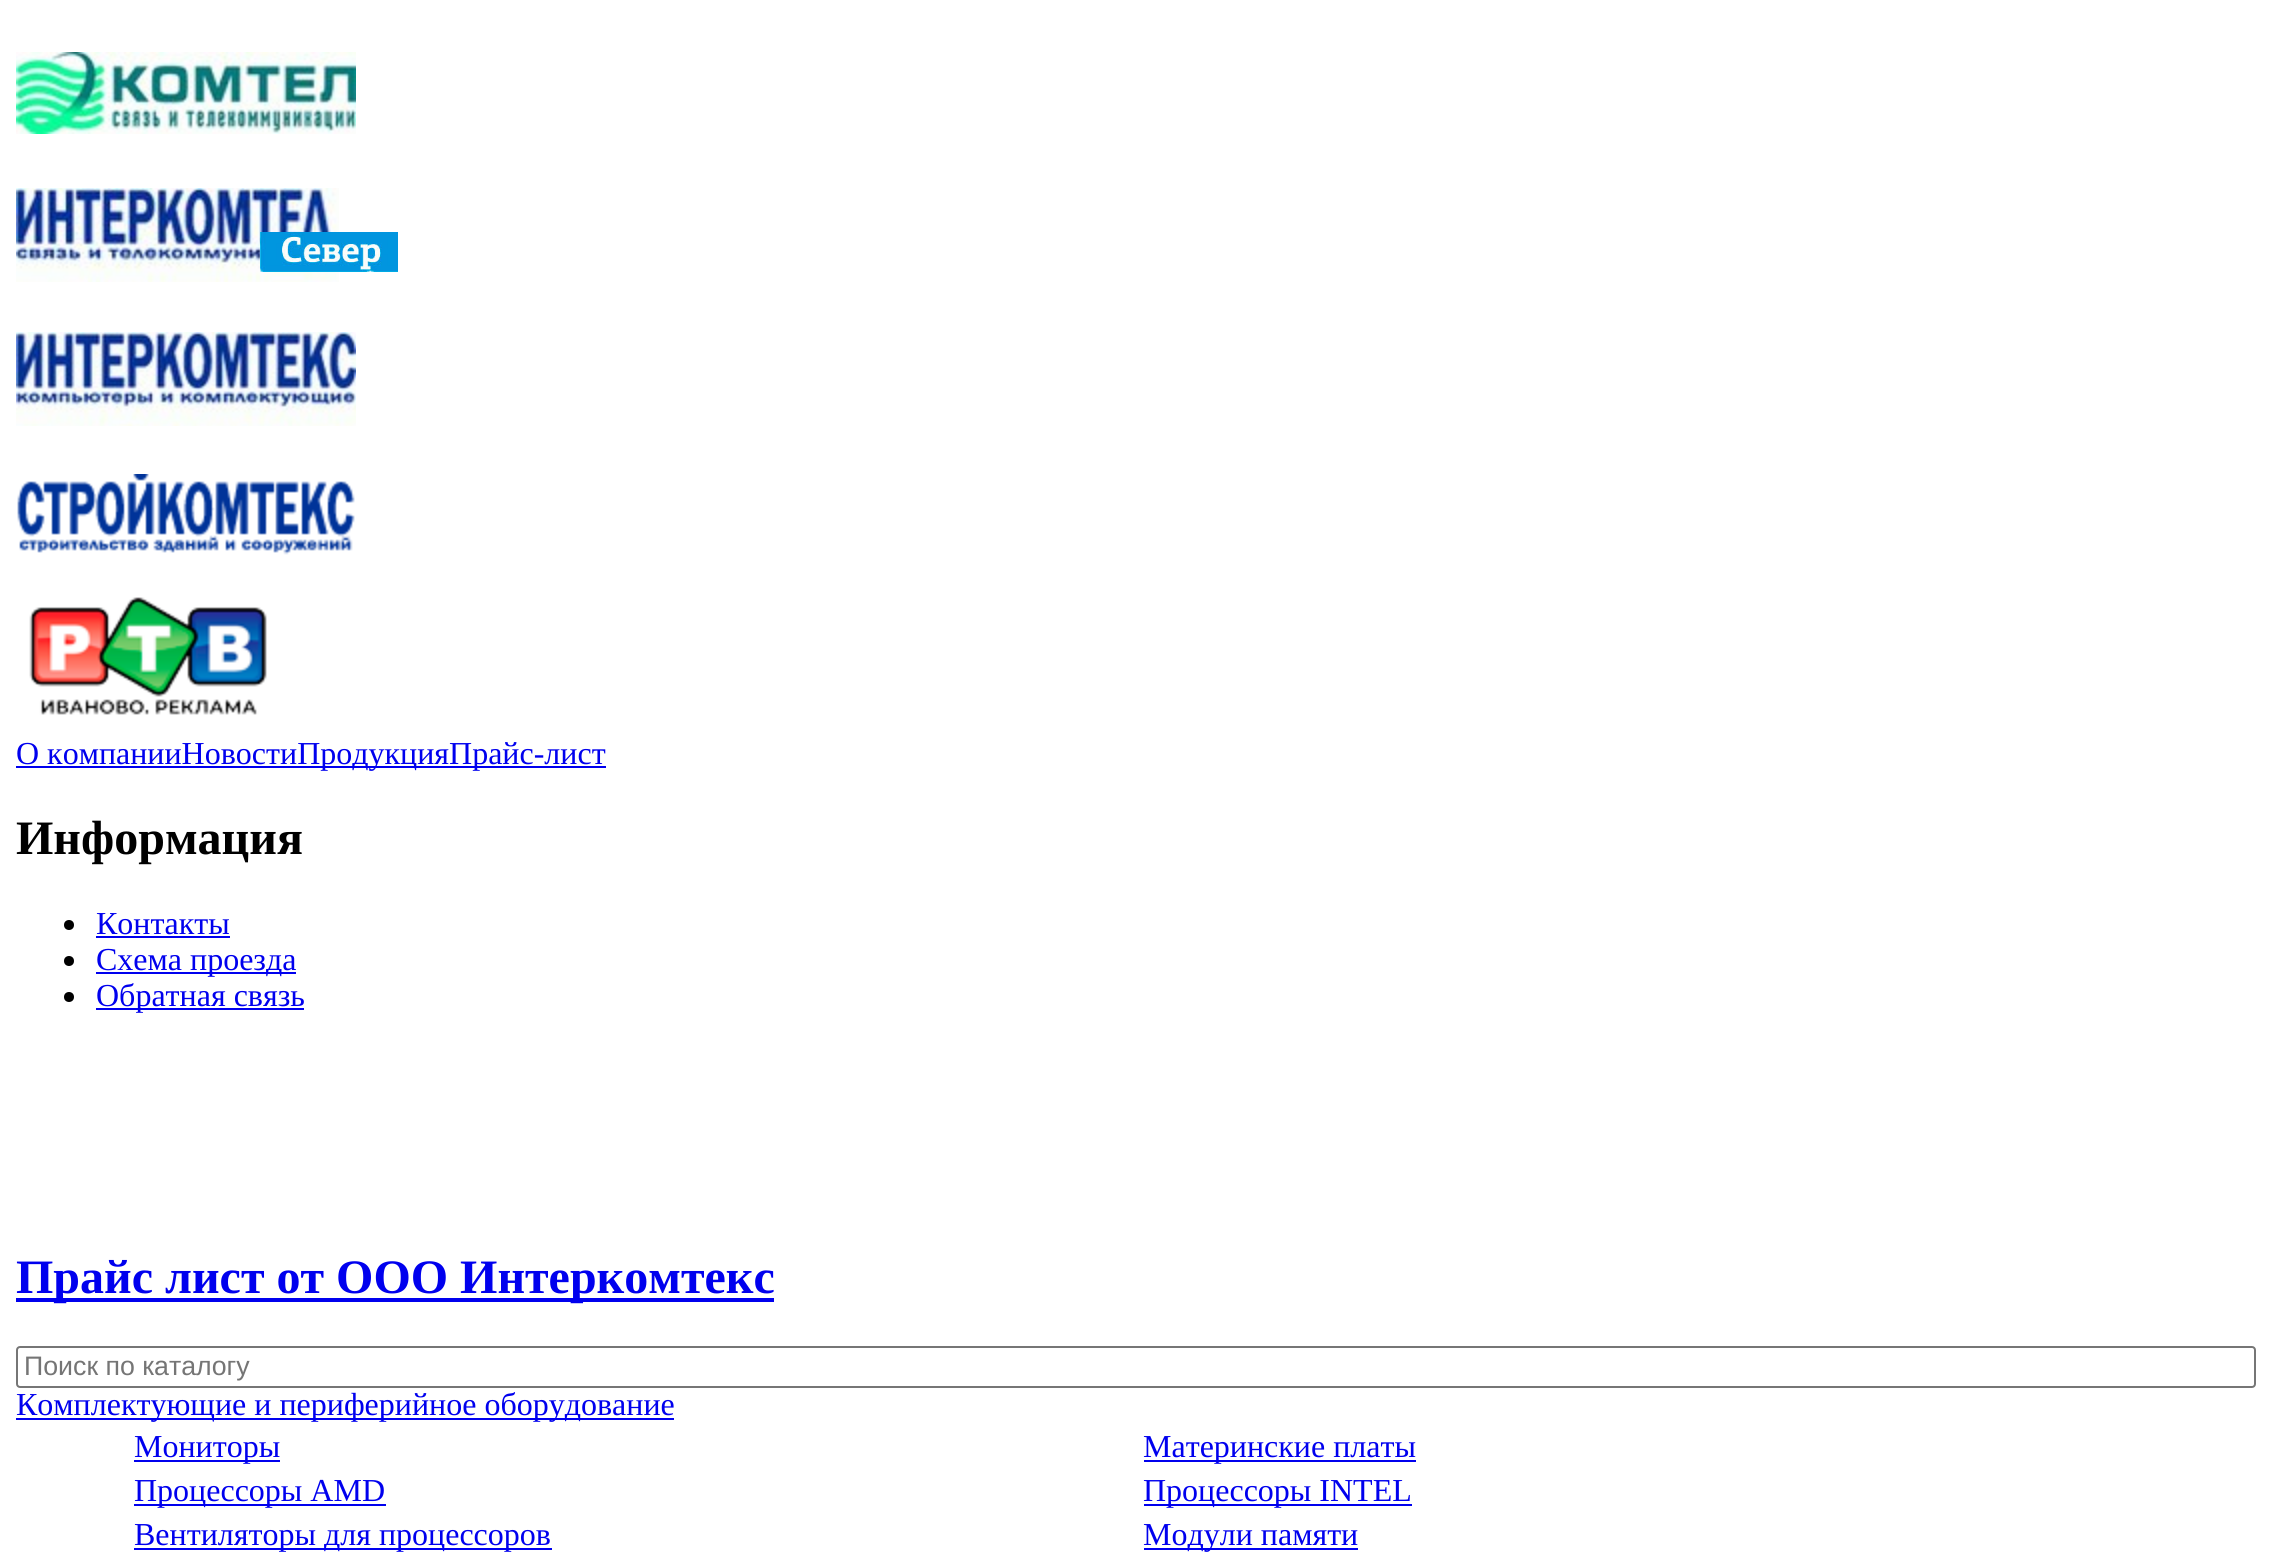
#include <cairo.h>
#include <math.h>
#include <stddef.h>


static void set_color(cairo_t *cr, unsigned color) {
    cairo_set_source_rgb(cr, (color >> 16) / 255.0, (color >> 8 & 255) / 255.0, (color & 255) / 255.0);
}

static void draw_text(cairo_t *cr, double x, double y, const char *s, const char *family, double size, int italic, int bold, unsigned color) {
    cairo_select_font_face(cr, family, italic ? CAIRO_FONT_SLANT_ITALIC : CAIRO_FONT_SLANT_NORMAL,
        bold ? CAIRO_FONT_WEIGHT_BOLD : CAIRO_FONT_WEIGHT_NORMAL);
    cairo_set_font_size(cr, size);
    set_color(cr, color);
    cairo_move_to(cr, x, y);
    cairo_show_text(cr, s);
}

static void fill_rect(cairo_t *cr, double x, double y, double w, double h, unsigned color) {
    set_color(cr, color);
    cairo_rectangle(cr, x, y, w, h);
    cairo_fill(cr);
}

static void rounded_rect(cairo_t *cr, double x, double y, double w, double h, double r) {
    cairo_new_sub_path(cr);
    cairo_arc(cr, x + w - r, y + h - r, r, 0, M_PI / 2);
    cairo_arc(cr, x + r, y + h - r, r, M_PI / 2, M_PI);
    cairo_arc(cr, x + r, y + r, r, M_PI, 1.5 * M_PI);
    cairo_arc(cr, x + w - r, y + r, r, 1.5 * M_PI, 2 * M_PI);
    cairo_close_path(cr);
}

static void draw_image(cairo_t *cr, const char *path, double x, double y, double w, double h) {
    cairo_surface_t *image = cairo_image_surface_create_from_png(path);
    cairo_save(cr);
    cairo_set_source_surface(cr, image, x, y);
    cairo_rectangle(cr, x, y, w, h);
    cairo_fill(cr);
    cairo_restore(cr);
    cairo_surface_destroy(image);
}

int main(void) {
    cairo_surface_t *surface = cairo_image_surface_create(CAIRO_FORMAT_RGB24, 2277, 1568);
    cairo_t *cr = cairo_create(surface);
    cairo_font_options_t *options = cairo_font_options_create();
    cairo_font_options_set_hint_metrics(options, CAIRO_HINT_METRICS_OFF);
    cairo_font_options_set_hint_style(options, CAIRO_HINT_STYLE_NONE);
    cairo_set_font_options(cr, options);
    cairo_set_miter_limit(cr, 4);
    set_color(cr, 0xFFFFFF);
    cairo_paint(cr);
    draw_image(cr, "assets/img1.png", 16, 52, 340, 82);
    draw_image(cr, "assets/img2.png", 16, 188, 323, 94);
    draw_image(cr, "assets/img3.png", 260, 232, 138, 40);
    draw_image(cr, "assets/img4.png", 16, 332, 340, 94);
    draw_image(cr, "assets/img5.png", 17, 474, 338, 81);
    draw_image(cr, "assets/img6.png", 29, 597, 238, 118);
    fill_rect(cr, 16, 766, 590, 2, 0x0000EE);
    draw_text(cr, 16, 764, "О компанииНовостиПродукцияПрайс-лист", "Liberation Serif", 32, 0, 0, 0x0000EE);
    draw_text(cr, 16, 854, "Информация", "Liberation Serif", 48, 0, 1, 0x000000);
    cairo_new_path(cr);
    cairo_arc(cr, 69, 925, 5, 0, 2 * M_PI);
    cairo_fill(cr);
    draw_text(cr, 96, 934, "Контакты", "Liberation Serif", 32, 0, 0, 0x0000EE);
    fill_rect(cr, 96, 936, 134, 2, 0x0000EE);
    set_color(cr, 0x000000);
    cairo_new_path(cr);
    cairo_arc(cr, 69, 961, 5, 0, 2 * M_PI);
    cairo_fill(cr);
    fill_rect(cr, 96, 972, 200, 2, 0x0000EE);
    draw_text(cr, 96, 970, "Схема проезда", "Liberation Serif", 32, 0, 0, 0x0000EE);
    set_color(cr, 0x000000);
    cairo_new_path(cr);
    cairo_arc(cr, 69, 997, 5, 0, 2 * M_PI);
    cairo_fill(cr);
    fill_rect(cr, 96, 1008, 208, 2, 0x0000EE);
    draw_text(cr, 96, 1006, "Обратная связь", "Liberation Serif", 32, 0, 0, 0x0000EE);
    fill_rect(cr, 16, 1298, 758, 4, 0x0000EE);
    draw_text(cr, 16, 1293, "Прайс лист от ООО Интеркомтекс", "Liberation Serif", 48, 0, 1, 0x0000EE);
    rounded_rect(cr, 17, 1347, 2238, 40, 3);
    set_color(cr, 0x767676);
    cairo_stroke(cr);
    draw_text(cr, 24, 1375, "Поиск по каталогу", "Liberation Sans", 26.75, 0, 0, 0x757575);
    fill_rect(cr, 16, 1418, 658, 2, 0x0000EE);
    draw_text(cr, 16, 1415, "Комплектующие и периферийное оборудование", "Liberation Serif", 32, 0, 0, 0x0000EE);
    fill_rect(cr, 134, 1460, 146, 2, 0x0000EE);
    draw_text(cr, 134, 1457, "Мониторы", "Liberation Serif", 32, 0, 0, 0x0000EE);
    fill_rect(cr, 1144, 1460, 272, 2, 0x0000EE);
    draw_text(cr, 1143, 1457, "Материнские платы", "Liberation Serif", 32, 0, 0, 0x0000EE);
    fill_rect(cr, 134, 1504, 252, 2, 0x0000EE);
    draw_text(cr, 134, 1501, "Процессоры AMD", "Liberation Serif", 32, 0, 0, 0x0000EE);
    fill_rect(cr, 1144, 1504, 268, 2, 0x0000EE);
    draw_text(cr, 1143, 1501, "Процессоры INTEL", "Liberation Serif", 32, 0, 0, 0x0000EE);
    fill_rect(cr, 134, 1548, 418, 2, 0x0000EE);
    draw_text(cr, 134, 1545, "Вентиляторы для процессоров", "Liberation Serif", 32, 0, 0, 0x0000EE);
    fill_rect(cr, 1144, 1548, 214, 2, 0x0000EE);
    draw_text(cr, 1143, 1545, "Модули памяти", "Liberation Serif", 32, 0, 0, 0x0000EE);
    cairo_surface_write_to_png(surface, "output.png");
    cairo_font_options_destroy(options);
    cairo_destroy(cr);
    cairo_surface_destroy(surface);
    return 0;
}
